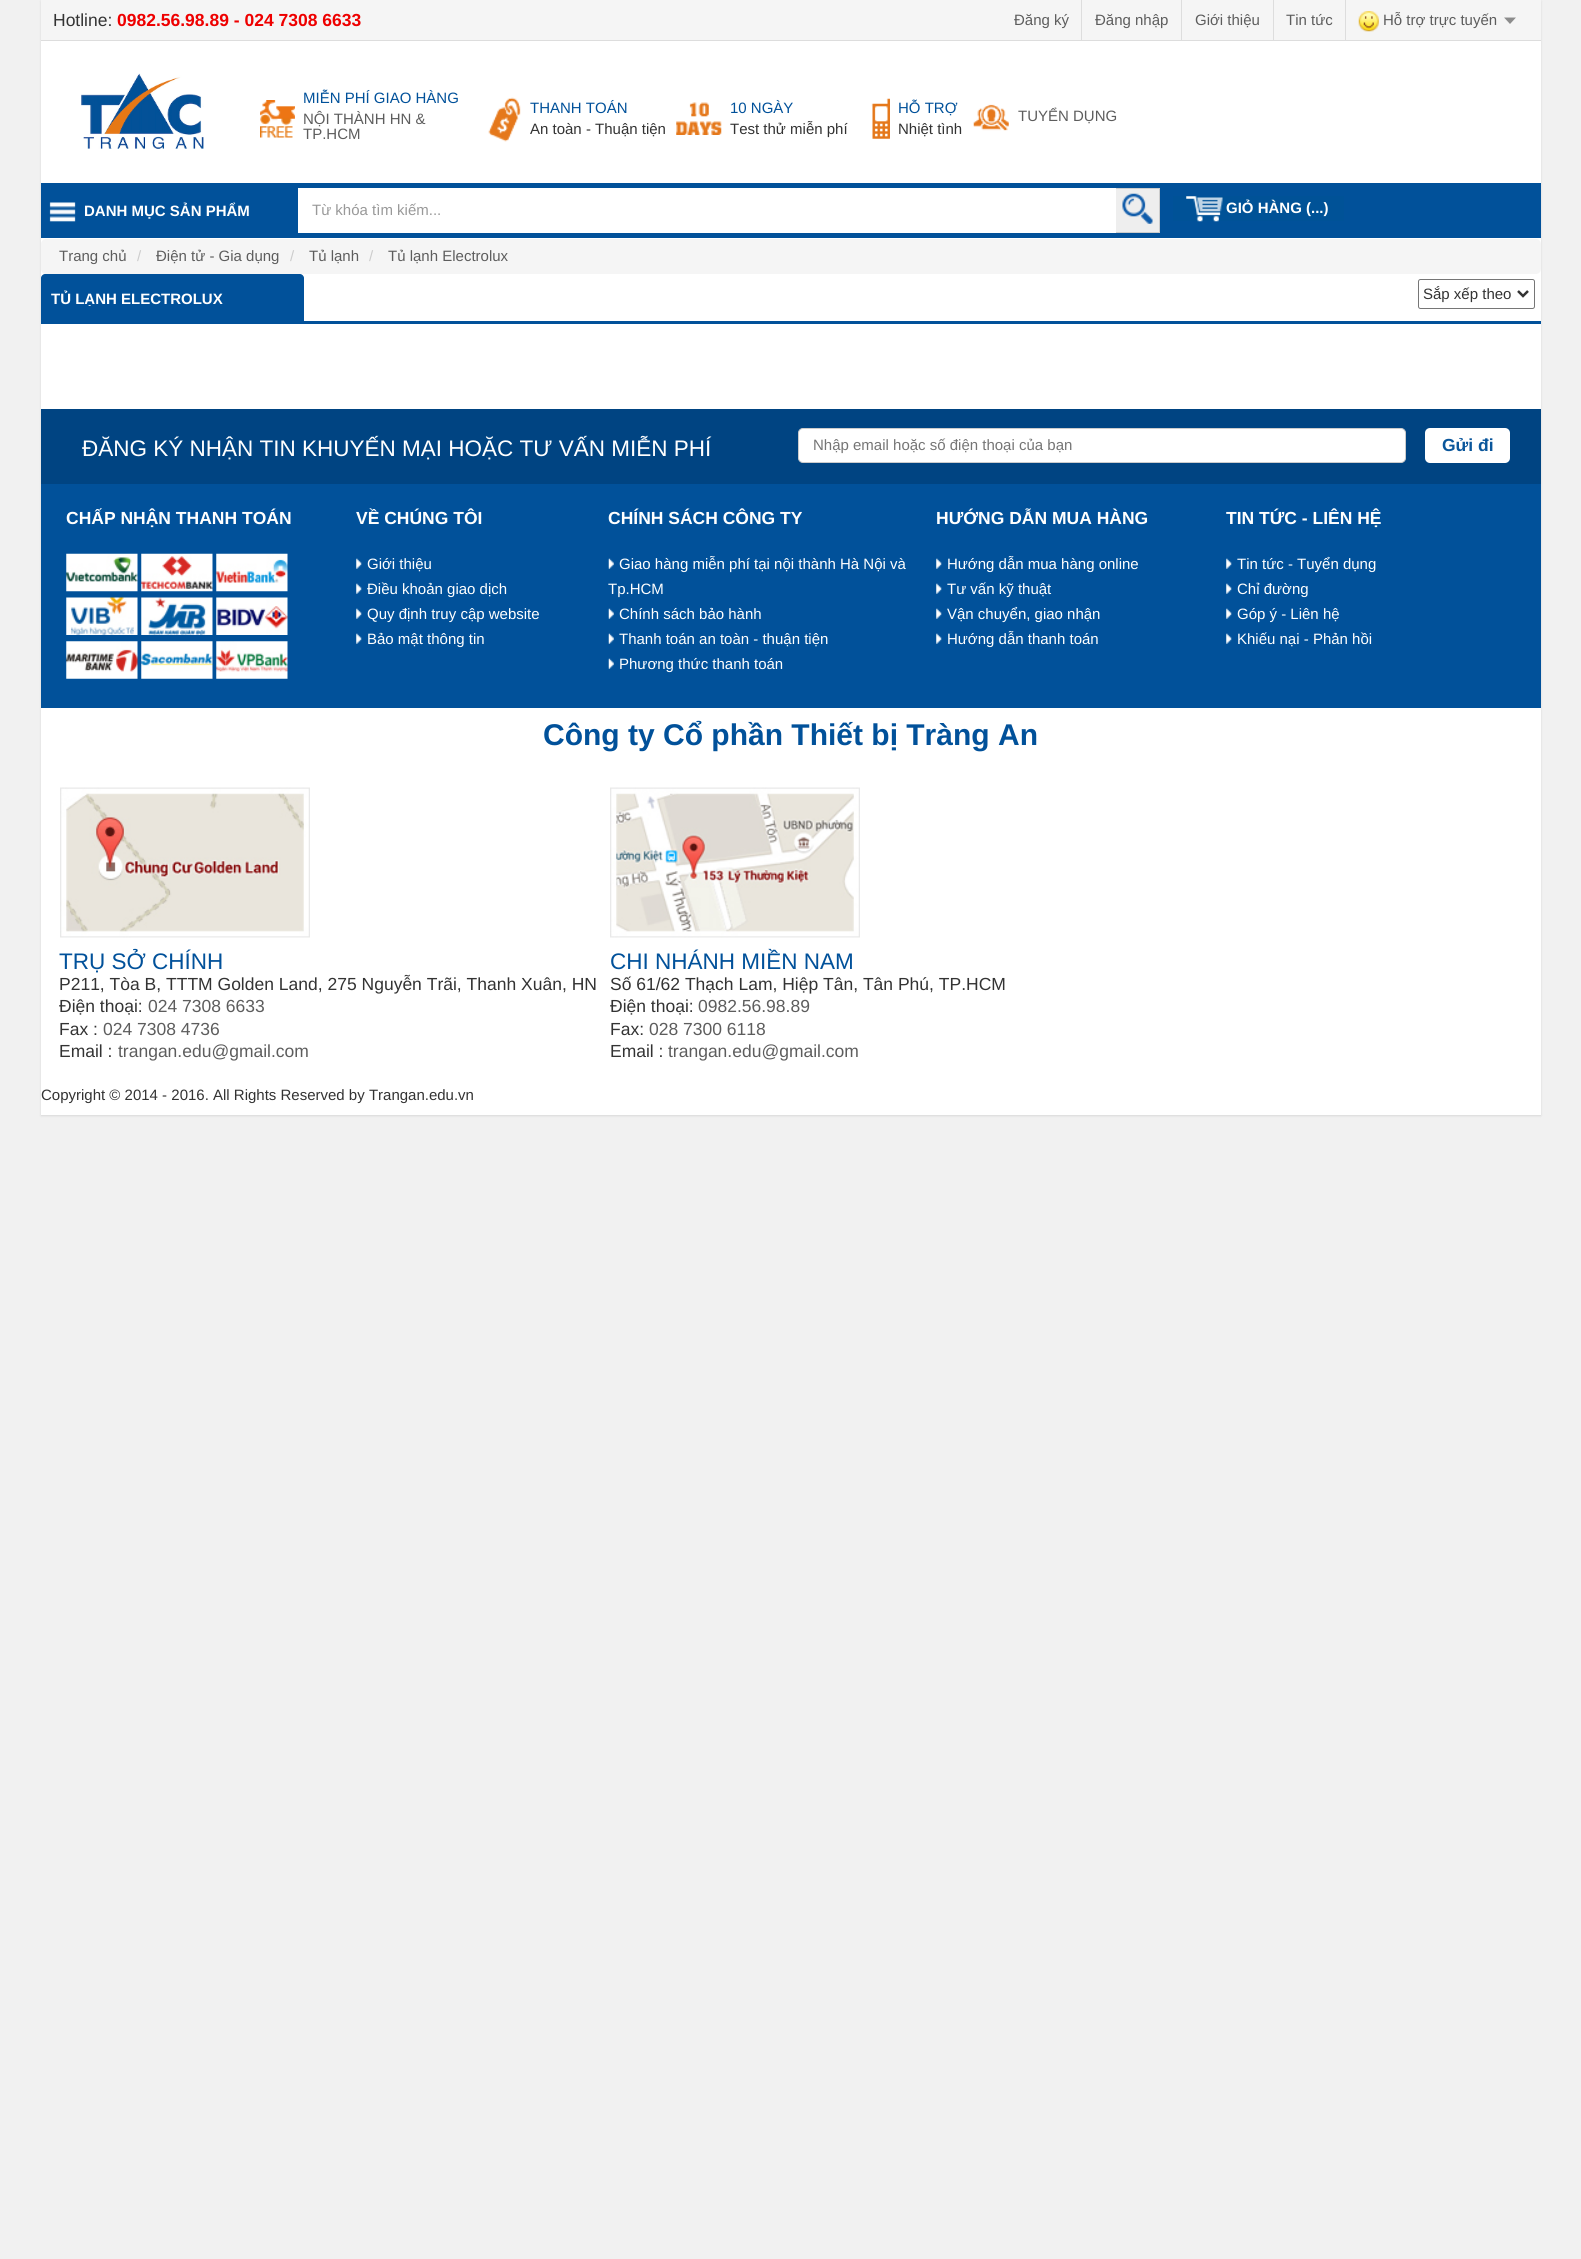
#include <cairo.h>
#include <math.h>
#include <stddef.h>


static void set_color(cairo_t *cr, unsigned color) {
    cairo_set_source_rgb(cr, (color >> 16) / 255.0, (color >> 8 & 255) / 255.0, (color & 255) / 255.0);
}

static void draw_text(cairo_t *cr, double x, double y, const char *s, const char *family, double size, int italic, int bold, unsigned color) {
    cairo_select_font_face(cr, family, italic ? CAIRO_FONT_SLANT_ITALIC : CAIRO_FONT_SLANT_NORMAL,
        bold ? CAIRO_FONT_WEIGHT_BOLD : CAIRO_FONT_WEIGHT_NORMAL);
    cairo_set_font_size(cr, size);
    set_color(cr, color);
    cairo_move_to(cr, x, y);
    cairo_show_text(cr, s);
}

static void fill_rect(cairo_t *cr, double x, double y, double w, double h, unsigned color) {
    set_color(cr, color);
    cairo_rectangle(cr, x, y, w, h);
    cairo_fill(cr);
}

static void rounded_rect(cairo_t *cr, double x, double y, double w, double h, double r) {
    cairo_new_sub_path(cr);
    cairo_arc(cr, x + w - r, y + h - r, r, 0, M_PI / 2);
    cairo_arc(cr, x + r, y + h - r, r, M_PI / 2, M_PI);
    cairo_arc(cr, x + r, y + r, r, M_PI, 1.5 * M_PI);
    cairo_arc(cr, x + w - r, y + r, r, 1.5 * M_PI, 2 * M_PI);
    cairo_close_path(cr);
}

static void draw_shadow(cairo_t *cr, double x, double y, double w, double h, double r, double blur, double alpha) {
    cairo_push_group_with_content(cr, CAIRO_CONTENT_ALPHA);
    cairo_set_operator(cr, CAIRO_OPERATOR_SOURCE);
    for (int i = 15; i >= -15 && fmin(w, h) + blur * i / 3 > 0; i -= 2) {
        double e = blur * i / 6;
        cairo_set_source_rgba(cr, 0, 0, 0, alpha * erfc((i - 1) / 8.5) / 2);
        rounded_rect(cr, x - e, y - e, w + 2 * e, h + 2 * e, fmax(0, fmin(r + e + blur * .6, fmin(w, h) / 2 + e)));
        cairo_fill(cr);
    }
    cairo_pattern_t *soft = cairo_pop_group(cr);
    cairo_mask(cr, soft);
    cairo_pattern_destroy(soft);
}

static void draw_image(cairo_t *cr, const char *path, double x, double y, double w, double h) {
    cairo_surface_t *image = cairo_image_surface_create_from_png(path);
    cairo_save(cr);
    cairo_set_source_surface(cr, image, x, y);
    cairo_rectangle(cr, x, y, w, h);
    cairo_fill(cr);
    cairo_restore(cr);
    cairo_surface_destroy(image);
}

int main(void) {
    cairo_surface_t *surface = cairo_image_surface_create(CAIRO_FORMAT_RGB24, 1581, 2259);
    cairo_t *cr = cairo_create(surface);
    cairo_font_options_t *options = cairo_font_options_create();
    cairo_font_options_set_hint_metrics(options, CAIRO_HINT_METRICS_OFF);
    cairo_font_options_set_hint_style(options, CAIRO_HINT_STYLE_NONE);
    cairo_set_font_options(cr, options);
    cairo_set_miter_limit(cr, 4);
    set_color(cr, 0xF1F1F1);
    cairo_paint(cr);
    set_color(cr, 0x000000);
    draw_shadow(cr, 41, 1, 1500, 1115, 0, 1, 0.1);
    fill_rect(cr, 41, 41, 1500, 1074, 0xFFFFFF);
    fill_rect(cr, 41, 0, 1500, 40, 0xF5F5F5);
    fill_rect(cr, 41, 40, 1500, 1, 0xDDDDDD);
    draw_text(cr, 53, 26, "Hotline:", "Liberation Sans", 17.5, 0, 0, 0x333333);
    draw_text(cr, 117, 26, "0982.56.98.89 - 024 7308 6633", "Liberation Sans", 17.5, 0, 1, 0xEE0000);
    fill_rect(cr, 1081, 0, 1, 41, 0xDDDDDD);
    draw_text(cr, 1014, 25, "Đăng ký", "Liberation Sans", 15, 0, 0, 0x5D5D5D);
    fill_rect(cr, 1181, 0, 1, 41, 0xDDDDDD);
    draw_text(cr, 1095, 25, "Đăng nhập", "Liberation Sans", 15, 0, 0, 0x5D5D5D);
    fill_rect(cr, 1273, 0, 1, 41, 0xDDDDDD);
    draw_text(cr, 1195, 25, "Giới thiệu", "Liberation Sans", 15, 0, 0, 0x5D5D5D);
    fill_rect(cr, 1345, 0, 1, 41, 0xDDDDDD);
    draw_text(cr, 1286, 25, "Tin tức", "Liberation Sans", 15, 0, 0, 0x5D5D5D);
    draw_image(cr, "assets/img1.png", 1358, 11, 21, 21);
    draw_text(cr, 1383, 25, "Hỗ trợ trực tuyến", "Liberation Sans", 15, 0, 0, 0x5D5D5D);
    set_color(cr, 0x8C8C8C);
    cairo_new_path(cr);
    cairo_move_to(cr, 1504, 17.5);
    cairo_line_to(cr, 1516, 17.5);
    cairo_line_to(cr, 1510, 24);
    cairo_close_path(cr);
    cairo_fill(cr);
    draw_image(cr, "assets/img2.png", 81, 73, 123, 76);
    draw_image(cr, "assets/img3.png", 260, 100, 35, 38);
    draw_text(cr, 303, 103, "MIỄN PHÍ GIAO HÀNG", "Liberation Sans", 15, 0, 0, 0x01519A);
    draw_text(cr, 303, 124, "NỘI THÀNH HN &", "Liberation Sans", 15, 0, 0, 0x5D5D5D);
    draw_text(cr, 303, 139, "TP.HCM", "Liberation Sans", 15, 0, 0, 0x5D5D5D);
    draw_image(cr, "assets/img4.png", 488, 97, 33, 45);
    draw_text(cr, 530, 113, "THANH TOÁN", "Liberation Sans", 15, 0, 0, 0x01519A);
    draw_text(cr, 530, 134, "An toàn - Thuận tiện", "Liberation Sans", 15, 0, 0, 0x333333);
    draw_image(cr, "assets/img5.png", 676, 102, 46, 33);
    draw_text(cr, 730, 113, "10 NGÀY", "Liberation Sans", 15, 0, 0, 0x01519A);
    draw_text(cr, 730, 134, "Test thử miễn phí", "Liberation Sans", 15, 0, 0, 0x333333);
    draw_image(cr, "assets/img6.png", 871, 98, 19, 41);
    draw_text(cr, 898, 113, "HỖ TRỢ", "Liberation Sans", 15, 0, 0, 0x01519A);
    draw_text(cr, 898, 134, "Nhiệt tình", "Liberation Sans", 15, 0, 0, 0x333333);
    draw_image(cr, "assets/img7.png", 973, 104, 36, 27);
    draw_text(cr, 1018, 121, "TUYỂN DỤNG", "Liberation Sans", 15, 0, 0, 0x5D5D5D);
    fill_rect(cr, 41, 183, 1500, 55, 0x01519A);
    draw_image(cr, "assets/img8.png", 49, 202, 27, 20);
    draw_text(cr, 84, 216, "DANH MỤC SẢN PHẨM", "Liberation Sans", 15, 0, 1, 0xFFFFFF);
    set_color(cr, 0xEEEEEE);
    cairo_rectangle(cr, 1115.5, 188.5, 44, 44);
    cairo_fill_preserve(cr);
    set_color(cr, 0xCCCCCC);
    cairo_set_line_width(cr, 1);
    cairo_stroke(cr);
    fill_rect(cr, 298, 188, 818, 45, 0xFFFFFF);
    draw_text(cr, 312, 215, "Từ khóa tìm kiếm...", "Liberation Sans", 15, 0, 0, 0x999999);
    draw_image(cr, "assets/img9.png", 1122, 193, 31, 31);
    fill_rect(cr, 1173, 196, 171, 25, 0x005297);
    draw_image(cr, "assets/img10.png", 1186, 196, 37, 26);
    draw_text(cr, 1226, 213, "GIỎ HÀNG (...)", "Liberation Sans", 15, 0, 1, 0xFFFFFF);
    set_color(cr, 0xF5F5F5);
    rounded_rect(cr, 41, 239, 1500, 35, 5);
    cairo_fill(cr);
    draw_text(cr, 59, 261, "Trang chủ", "Liberation Sans", 15, 0, 0, 0x5D5D5D);
    draw_text(cr, 137, 261, "/", "Liberation Sans", 15, 0, 0, 0xCCCCCC);
    draw_text(cr, 156, 261, "Điện tử - Gia dụng", "Liberation Sans", 15, 0, 0, 0x5D5D5D);
    draw_text(cr, 290, 261, "/", "Liberation Sans", 15, 0, 0, 0xCCCCCC);
    draw_text(cr, 309, 261, "Tủ lạnh", "Liberation Sans", 15, 0, 0, 0x5D5D5D);
    draw_text(cr, 369, 261, "/", "Liberation Sans", 15, 0, 0, 0xCCCCCC);
    draw_text(cr, 388, 261, "Tủ lạnh Electrolux", "Liberation Sans", 15, 0, 0, 0x5D5D5D);
    set_color(cr, 0x01519A);
    cairo_new_path(cr);
    cairo_move_to(cr, 45, 274);
    cairo_line_to(cr, 300, 274);
    cairo_curve_to(cr, 302, 274, 304, 276, 304, 278);
    cairo_line_to(cr, 304, 324);
    cairo_line_to(cr, 41, 324);
    cairo_line_to(cr, 41, 278);
    cairo_curve_to(cr, 41, 276, 43, 274, 45, 274);
    cairo_close_path(cr);
    cairo_fill(cr);
    cairo_save(cr);
    cairo_rectangle(cr, 48, 280, 181, 26);
    cairo_clip(cr);
    draw_text(cr, 51, 304, "TỦ LẠNH ELECTROLUX", "Liberation Sans", 15, 0, 1, 0xFFFFFF);
    cairo_restore(cr);
    fill_rect(cr, 304, 321, 1237, 3, 0x01519A);
    rounded_rect(cr, 1418.5, 279.5, 116, 29, 2);
    set_color(cr, 0x767676);
    cairo_stroke(cr);
    cairo_new_path(cr);
    cairo_move_to(cr, 1518, 291);
    cairo_line_to(cr, 1523, 296);
    cairo_line_to(cr, 1528, 291);
    set_color(cr, 0x333333);
    cairo_set_line_width(cr, 2.5);
    cairo_stroke(cr);
    draw_text(cr, 1423, 299, "Sắp xếp theo", "Liberation Sans", 15, 0, 0, 0x333333);
    fill_rect(cr, 41, 409, 1500, 75, 0x004482);
    draw_text(cr, 82, 456, "ĐĂNG KÝ NHẬN TIN KHUYẾN MẠI HOẶC TƯ VẤN MIỄN PHÍ", "Liberation Sans", 22.5, 0, 0, 0xFFFFFF);
    rounded_rect(cr, 798.5, 428.5, 607, 34, 4.5);
    cairo_fill_preserve(cr);
    set_color(cr, 0xCCCCCC);
    cairo_set_line_width(cr, 1);
    cairo_stroke(cr);
    draw_text(cr, 813, 450, "Nhập email hoặc số điện thoại của bạn", "Liberation Sans", 15, 0, 0, 0x757575);
    set_color(cr, 0xFFFFFF);
    rounded_rect(cr, 1425, 428, 85, 35, 5);
    cairo_fill(cr);
    draw_text(cr, 1442, 451, "Gửi đi", "Liberation Sans", 17.5, 0, 1, 0x0A569B);
    fill_rect(cr, 41, 484, 1500, 224, 0x01519A);
    draw_text(cr, 66, 524, "CHẤP NHẬN THANH TOÁN", "Liberation Sans", 17.5, 0, 1, 0xFFFFFF);
    draw_image(cr, "assets/img11.png", 66, 553, 72, 39);
    draw_image(cr, "assets/img12.png", 141, 553, 72, 39);
    draw_image(cr, "assets/img13.png", 216, 553, 72, 39);
    draw_image(cr, "assets/img14.png", 66, 597, 72, 38);
    draw_image(cr, "assets/img15.png", 141, 597, 72, 38);
    draw_image(cr, "assets/img16.png", 216, 597, 72, 38);
    draw_image(cr, "assets/img17.png", 66, 641, 72, 38);
    draw_image(cr, "assets/img18.png", 141, 641, 72, 38);
    draw_image(cr, "assets/img19.png", 216, 641, 72, 38);
    draw_text(cr, 356, 524, "VỀ CHÚNG TÔI", "Liberation Sans", 17.5, 0, 1, 0xFFFFFF);
    draw_image(cr, "assets/img20.png", 356, 558, 6, 11);
    draw_text(cr, 367, 569, "Giới thiệu", "Liberation Sans", 15, 0, 0, 0xFFFFFF);
    draw_image(cr, "assets/img21.png", 356, 583, 6, 11);
    draw_text(cr, 367, 594, "Điều khoản giao dịch", "Liberation Sans", 15, 0, 0, 0xFFFFFF);
    draw_image(cr, "assets/img20.png", 356, 608, 6, 11);
    draw_text(cr, 367, 619, "Quy định truy cập website", "Liberation Sans", 15, 0, 0, 0xFFFFFF);
    draw_image(cr, "assets/img20.png", 356, 633, 6, 11);
    draw_text(cr, 367, 644, "Bảo mật thông tin", "Liberation Sans", 15, 0, 0, 0xFFFFFF);
    draw_text(cr, 608, 524, "CHÍNH SÁCH CÔNG TY", "Liberation Sans", 17.5, 0, 1, 0xFFFFFF);
    draw_image(cr, "assets/img22.png", 608, 558, 6, 11);
    draw_text(cr, 619, 569, "Giao hàng miễn phí tại nội thành Hà Nội và", "Liberation Sans", 15, 0, 0, 0xFFFFFF);
    draw_text(cr, 608, 594, "Tp.HCM", "Liberation Sans", 15, 0, 0, 0xFFFFFF);
    draw_image(cr, "assets/img22.png", 608, 608, 6, 11);
    draw_text(cr, 619, 619, "Chính sách bảo hành", "Liberation Sans", 15, 0, 0, 0xFFFFFF);
    draw_image(cr, "assets/img22.png", 608, 633, 6, 11);
    draw_text(cr, 619, 644, "Thanh toán an toàn - thuận tiện", "Liberation Sans", 15, 0, 0, 0xFFFFFF);
    draw_image(cr, "assets/img22.png", 608, 658, 6, 11);
    draw_text(cr, 619, 669, "Phương thức thanh toán", "Liberation Sans", 15, 0, 0, 0xFFFFFF);
    draw_text(cr, 936, 524, "HƯỚNG DẪN MUA HÀNG", "Liberation Sans", 17.5, 0, 1, 0xFFFFFF);
    draw_image(cr, "assets/img20.png", 936, 558, 6, 11);
    draw_text(cr, 947, 569, "Hướng dẫn mua hàng online", "Liberation Sans", 15, 0, 0, 0xFFFFFF);
    draw_image(cr, "assets/img21.png", 936, 583, 6, 11);
    draw_text(cr, 947, 594, "Tư vấn kỹ thuật", "Liberation Sans", 15, 0, 0, 0xFFFFFF);
    draw_image(cr, "assets/img20.png", 936, 608, 6, 11);
    draw_text(cr, 947, 619, "Vận chuyển, giao nhận", "Liberation Sans", 15, 0, 0, 0xFFFFFF);
    draw_image(cr, "assets/img20.png", 936, 633, 6, 11);
    draw_text(cr, 947, 644, "Hướng dẫn thanh toán", "Liberation Sans", 15, 0, 0, 0xFFFFFF);
    draw_text(cr, 1226, 524, "TIN TỨC - LIÊN HỆ", "Liberation Sans", 17.5, 0, 1, 0xFFFFFF);
    draw_image(cr, "assets/img20.png", 1226, 558, 6, 11);
    draw_text(cr, 1237, 569, "Tin tức - Tuyển dụng", "Liberation Sans", 15, 0, 0, 0xFFFFFF);
    draw_image(cr, "assets/img21.png", 1226, 583, 6, 11);
    draw_text(cr, 1237, 594, "Chỉ đường", "Liberation Sans", 15, 0, 0, 0xFFFFFF);
    draw_image(cr, "assets/img20.png", 1226, 608, 6, 11);
    draw_text(cr, 1237, 619, "Góp ý - Liên hệ", "Liberation Sans", 15, 0, 0, 0xFFFFFF);
    draw_image(cr, "assets/img20.png", 1226, 633, 6, 11);
    draw_text(cr, 1237, 644, "Khiếu nại - Phản hồi", "Liberation Sans", 15, 0, 0, 0xFFFFFF);
    draw_text(cr, 543, 745, "Công ty Cổ phần Thiết bị Tràng An", "Liberation Sans", 30, 0, 1, 0x01519A);
    draw_image(cr, "assets/img23.png", 60, 787, 250, 151);
    draw_text(cr, 59, 969, "TRỤ SỞ CHÍNH", "Liberation Sans", 22.5, 0, 0, 0x01519A);
    draw_text(cr, 59, 990, "P211, Tòa B, TTTM Golden Land, 275 Nguyễn Trãi, Thanh Xuân, HN", "Liberation Sans", 17.5, 0, 0, 0x333333);
    draw_text(cr, 59, 1012, "Điện thoại:", "Liberation Sans", 17.5, 0, 0, 0x333333);
    draw_text(cr, 148, 1012, "024 7308 6633", "Liberation Sans", 17.5, 0, 0, 0x5D5D5D);
    draw_text(cr, 59, 1035, "Fax :", "Liberation Sans", 17.5, 0, 0, 0x333333);
    draw_text(cr, 103, 1035, "024 7308 4736", "Liberation Sans", 17.5, 0, 0, 0x5D5D5D);
    draw_text(cr, 59, 1057, "Email :", "Liberation Sans", 17.5, 0, 0, 0x333333);
    draw_text(cr, 118, 1057, "trangan.edu@gmail.com", "Liberation Sans", 17.5, 0, 0, 0x5D5D5D);
    draw_image(cr, "assets/img24.png", 610, 787, 250, 151);
    draw_text(cr, 610, 969, "CHI NHÁNH MIỀN NAM", "Liberation Sans", 22.5, 0, 0, 0x01519A);
    draw_text(cr, 610, 990, "Số 61/62 Thạch Lam, Hiệp Tân, Tân Phú, TP.HCM", "Liberation Sans", 17.5, 0, 0, 0x333333);
    draw_text(cr, 610, 1012, "Điện thoại:", "Liberation Sans", 17.5, 0, 0, 0x333333);
    draw_text(cr, 698, 1012, "0982.56.98.89", "Liberation Sans", 17.5, 0, 0, 0x5D5D5D);
    draw_text(cr, 610, 1035, "Fax:", "Liberation Sans", 17.5, 0, 0, 0x333333);
    draw_text(cr, 649, 1035, "028 7300 6118", "Liberation Sans", 17.5, 0, 0, 0x5D5D5D);
    draw_text(cr, 610, 1057, "Email :", "Liberation Sans", 17.5, 0, 0, 0x333333);
    draw_text(cr, 668, 1057, "trangan.edu@gmail.com", "Liberation Sans", 17.5, 0, 0, 0x5D5D5D);
    draw_text(cr, 41, 1100, "Copyright © 2014 - 2016. All Rights Reserved by Trangan.edu.vn", "Liberation Sans", 15, 0, 0, 0x333333);
    cairo_surface_write_to_png(surface, "output.png");
    cairo_font_options_destroy(options);
    cairo_destroy(cr);
    cairo_surface_destroy(surface);
    return 0;
}
